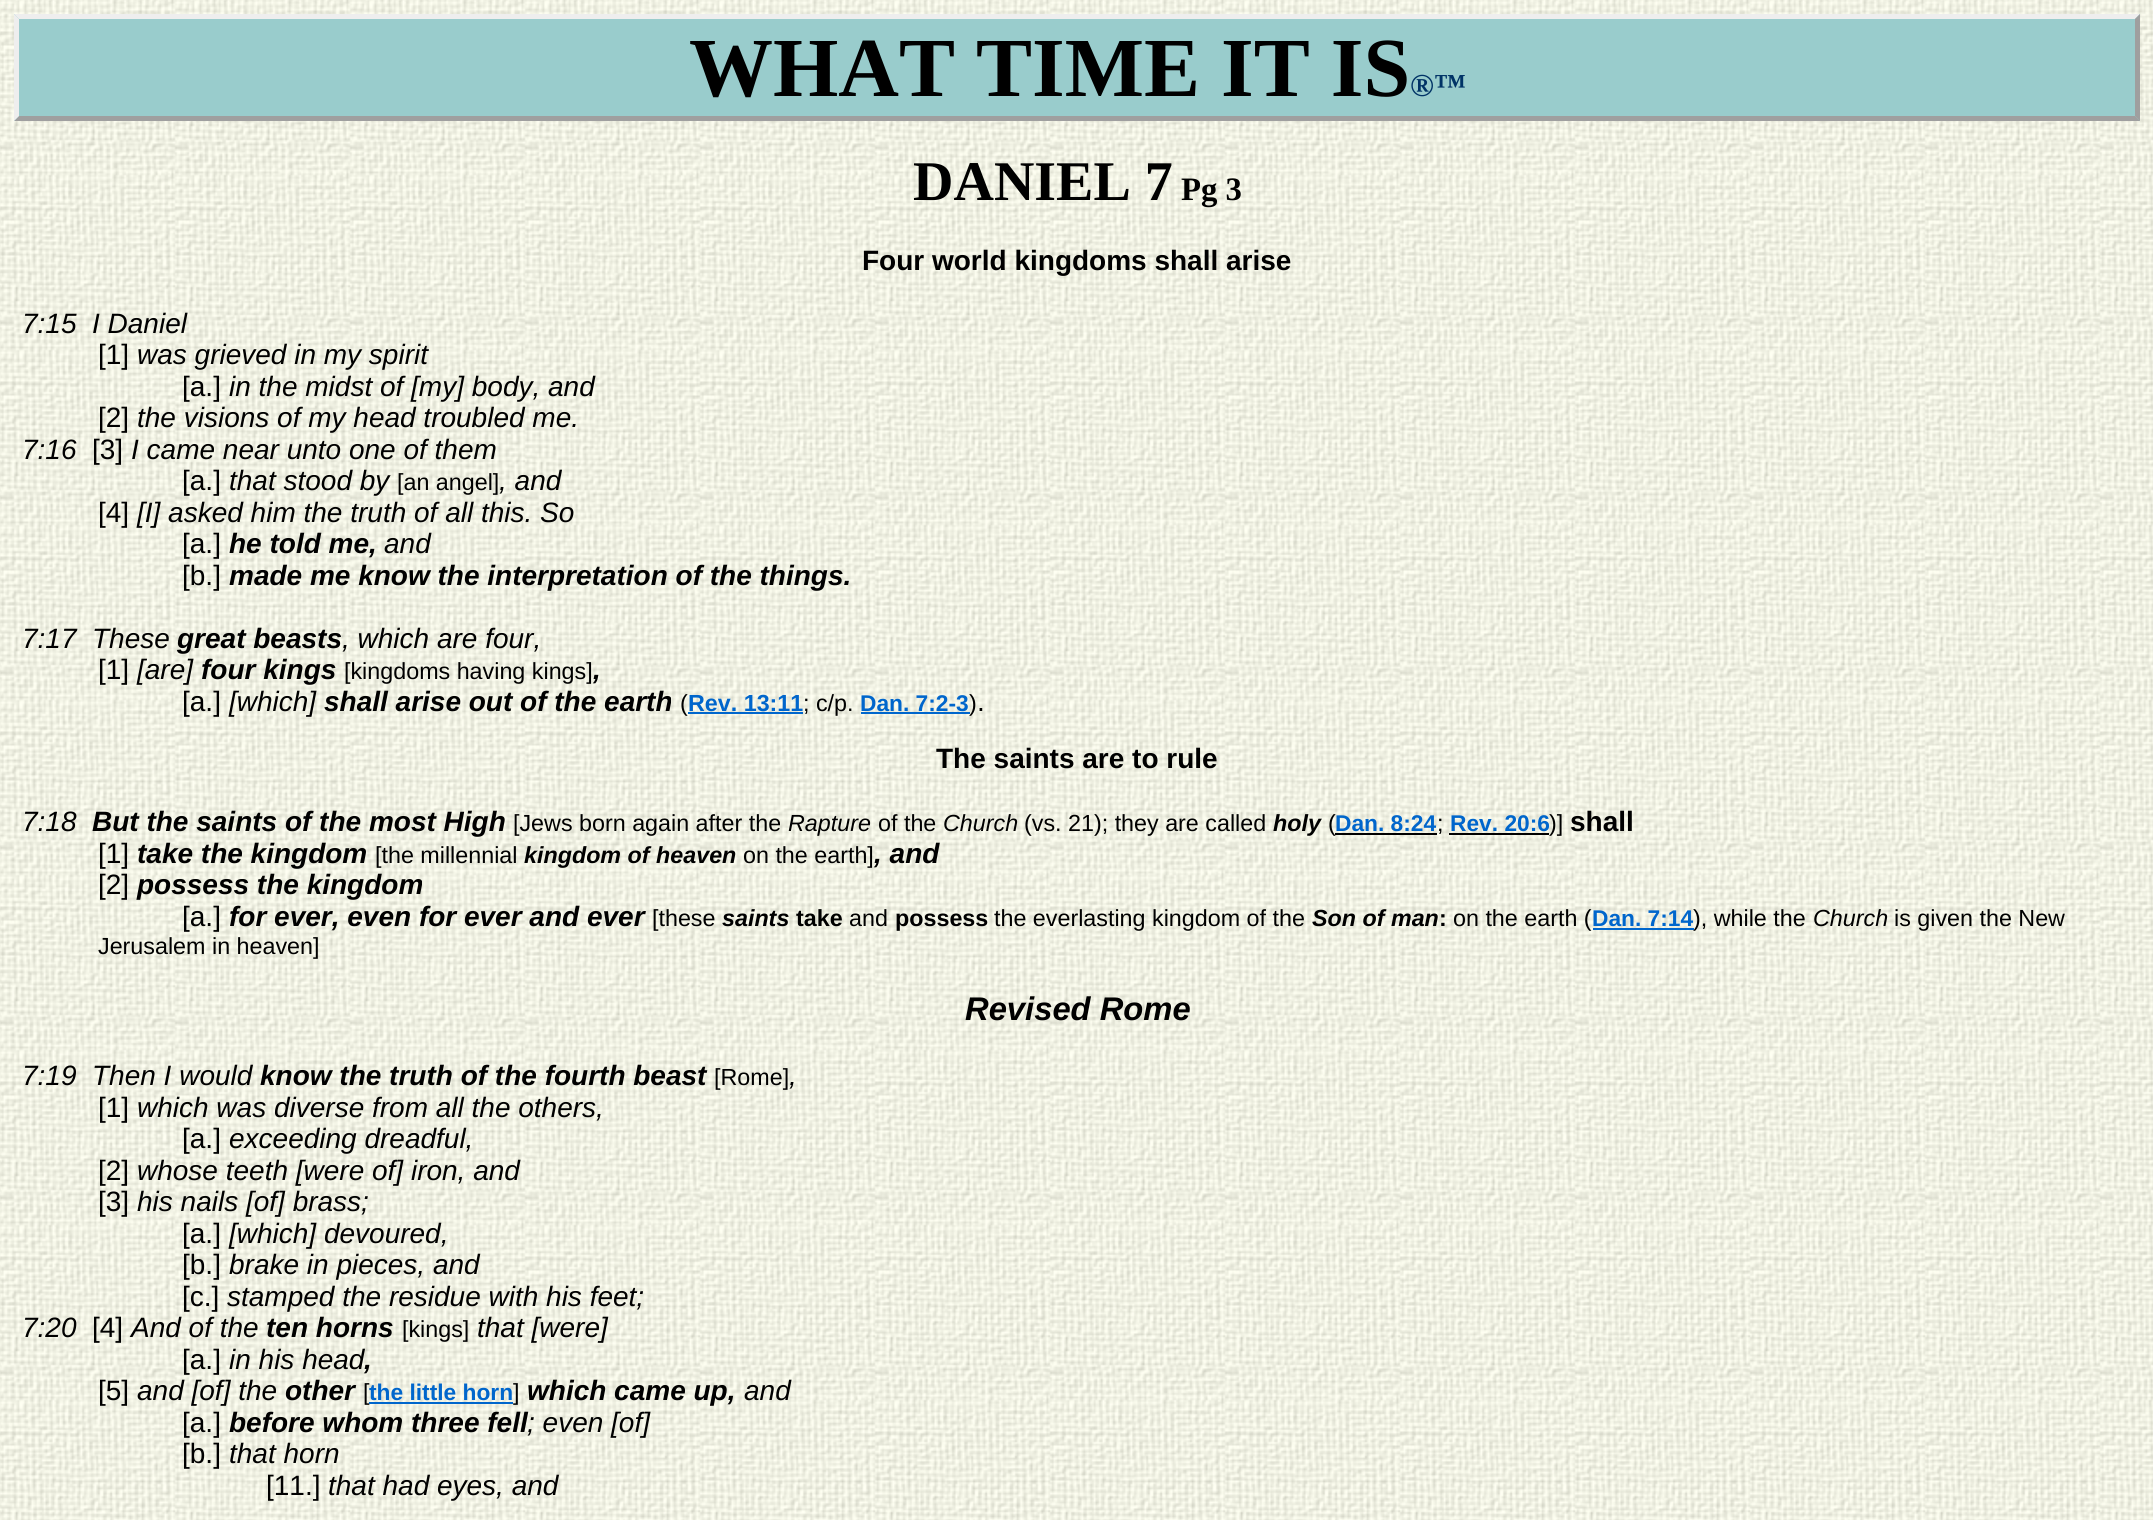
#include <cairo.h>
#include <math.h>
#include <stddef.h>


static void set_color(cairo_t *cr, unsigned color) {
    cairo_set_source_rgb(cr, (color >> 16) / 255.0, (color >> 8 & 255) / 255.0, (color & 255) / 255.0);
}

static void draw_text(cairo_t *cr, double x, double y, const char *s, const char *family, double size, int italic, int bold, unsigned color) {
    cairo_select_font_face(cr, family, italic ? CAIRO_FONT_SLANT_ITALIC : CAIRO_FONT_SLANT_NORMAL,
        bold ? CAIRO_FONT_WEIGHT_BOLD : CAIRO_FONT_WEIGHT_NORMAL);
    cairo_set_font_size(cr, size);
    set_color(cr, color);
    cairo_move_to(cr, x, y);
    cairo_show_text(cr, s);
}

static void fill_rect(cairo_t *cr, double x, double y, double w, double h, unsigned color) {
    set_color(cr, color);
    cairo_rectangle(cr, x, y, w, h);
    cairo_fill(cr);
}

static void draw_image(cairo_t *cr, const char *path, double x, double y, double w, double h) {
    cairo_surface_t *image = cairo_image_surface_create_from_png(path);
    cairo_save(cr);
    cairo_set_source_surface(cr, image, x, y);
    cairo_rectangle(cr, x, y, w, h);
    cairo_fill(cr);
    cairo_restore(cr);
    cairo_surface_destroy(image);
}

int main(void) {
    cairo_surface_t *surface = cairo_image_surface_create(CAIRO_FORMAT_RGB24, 2153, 1520);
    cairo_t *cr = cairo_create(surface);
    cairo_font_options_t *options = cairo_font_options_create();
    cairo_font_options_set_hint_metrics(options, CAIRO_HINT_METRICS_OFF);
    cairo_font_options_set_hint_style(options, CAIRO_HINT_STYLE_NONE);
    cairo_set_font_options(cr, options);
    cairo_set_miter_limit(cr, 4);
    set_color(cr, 0xFFFFFF);
    cairo_paint(cr);
    draw_image(cr, "assets/img1.png", 0, 0, 2153, 1520);
    fill_rect(cr, 14, 14, 2126, 107, 0x99CCCC);
    set_color(cr, 0xEEEEEE);
    cairo_new_path(cr);
    cairo_move_to(cr, 14, 14);
    cairo_line_to(cr, 2140, 14);
    cairo_line_to(cr, 2135, 19);
    cairo_line_to(cr, 19, 19);
    cairo_close_path(cr);
    cairo_fill(cr);
    set_color(cr, 0x9F9F9F);
    cairo_new_path(cr);
    cairo_move_to(cr, 2140, 14);
    cairo_line_to(cr, 2140, 121);
    cairo_line_to(cr, 2135, 116);
    cairo_line_to(cr, 2135, 19);
    cairo_close_path(cr);
    cairo_fill(cr);
    cairo_new_path(cr);
    cairo_move_to(cr, 2140, 121);
    cairo_line_to(cr, 14, 121);
    cairo_line_to(cr, 19, 116);
    cairo_line_to(cr, 2135, 116);
    cairo_close_path(cr);
    cairo_fill(cr);
    set_color(cr, 0xEEEEEE);
    cairo_new_path(cr);
    cairo_move_to(cr, 14, 121);
    cairo_line_to(cr, 14, 14);
    cairo_line_to(cr, 19, 19);
    cairo_line_to(cr, 19, 116);
    cairo_close_path(cr);
    cairo_fill(cr);
    draw_text(cr, 689, 96, "WHAT TIME IT IS", "Liberation Serif", 84, 0, 1, 0x000000);
    draw_text(cr, 1410, 96, "®™", "Liberation Serif", 32, 0, 1, 0x003366);
    draw_text(cr, 913, 200, "DANIEL 7", "Liberation Serif", 56, 0, 1, 0x000000);
    draw_text(cr, 1181, 200, "Pg 3", "Liberation Serif", 32.75, 0, 1, 0x000000);
    draw_text(cr, 862, 270, "Four world kingdoms shall arise", "Liberation Sans", 28, 0, 1, 0x000000);
    draw_text(cr, 22, 333, "7:15", "Liberation Sans", 28, 1, 0, 0x000000);
    draw_text(cr, 92, 333, "I Daniel", "Liberation Sans", 28, 1, 0, 0x000000);
    draw_text(cr, 98, 364, "[1]", "Liberation Sans", 28, 0, 0, 0x000000);
    draw_text(cr, 137, 364, "was grieved in my spirit", "Liberation Sans", 28, 1, 0, 0x000000);
    draw_text(cr, 182, 396, "[a.]", "Liberation Sans", 28, 0, 0, 0x000000);
    draw_text(cr, 229, 396, "in the midst of [my] body, and", "Liberation Sans", 28, 1, 0, 0x000000);
    draw_text(cr, 98, 427, "[2]", "Liberation Sans", 28, 0, 0, 0x000000);
    draw_text(cr, 137, 427, "the visions of my head troubled me.", "Liberation Sans", 28, 1, 0, 0x000000);
    draw_text(cr, 22, 459, "7:16", "Liberation Sans", 28, 1, 0, 0x000000);
    draw_text(cr, 92, 459, "[3]", "Liberation Sans", 28, 0, 0, 0x000000);
    draw_text(cr, 131, 459, "I came near unto one of them", "Liberation Sans", 28, 1, 0, 0x000000);
    draw_text(cr, 182, 490, "[a.]", "Liberation Sans", 28, 0, 0, 0x000000);
    draw_text(cr, 229, 490, "that stood by", "Liberation Sans", 28, 1, 0, 0x000000);
    draw_text(cr, 397, 490, "[an angel]", "Liberation Sans", 23.3, 0, 0, 0x000000);
    draw_text(cr, 499, 490, ", and", "Liberation Sans", 28, 1, 0, 0x000000);
    draw_text(cr, 98, 522, "[4]", "Liberation Sans", 28, 0, 0, 0x000000);
    draw_text(cr, 137, 522, "[I] asked him the truth of all this. So", "Liberation Sans", 28, 1, 0, 0x000000);
    draw_text(cr, 182, 553, "[a.]", "Liberation Sans", 28, 0, 0, 0x000000);
    draw_text(cr, 229, 553, "he told me,", "Liberation Sans", 28, 1, 1, 0x000000);
    draw_text(cr, 384, 553, "and", "Liberation Sans", 28, 1, 0, 0x000000);
    draw_text(cr, 182, 585, "[b.]", "Liberation Sans", 28, 0, 0, 0x000000);
    draw_text(cr, 229, 585, "made me know the interpretation of the things.", "Liberation Sans", 28, 1, 1, 0x000000);
    draw_text(cr, 22, 648, "7:17", "Liberation Sans", 28, 1, 0, 0x000000);
    draw_text(cr, 92, 648, "These", "Liberation Sans", 28, 1, 0, 0x000000);
    draw_text(cr, 177, 648, "great beasts", "Liberation Sans", 28, 1, 1, 0x000000);
    draw_text(cr, 342, 648, ", which are four,", "Liberation Sans", 28, 1, 0, 0x000000);
    draw_text(cr, 98, 679, "[1]", "Liberation Sans", 28, 0, 0, 0x000000);
    draw_text(cr, 137, 679, "[are]", "Liberation Sans", 28, 1, 0, 0x000000);
    draw_text(cr, 201, 679, "four kings", "Liberation Sans", 28, 1, 1, 0x000000);
    draw_text(cr, 344, 679, "[kingdoms having kings]", "Liberation Sans", 23.3, 0, 0, 0x000000);
    draw_text(cr, 593, 679, ",", "Liberation Sans", 28, 1, 1, 0x000000);
    draw_text(cr, 182, 711, "[a.]", "Liberation Sans", 28, 0, 0, 0x000000);
    draw_text(cr, 229, 711, "[which]", "Liberation Sans", 28, 1, 0, 0x000000);
    draw_text(cr, 324, 711, "shall arise out of the earth", "Liberation Sans", 28, 1, 1, 0x000000);
    draw_text(cr, 680, 711, "(", "Liberation Sans", 23.3, 0, 0, 0x000000);
    draw_text(cr, 688, 711, "Rev. 13:11", "Liberation Sans", 23.3, 0, 1, 0x0066CC);
    fill_rect(cr, 688, 712, 115, 2, 0x0066CC);
    draw_text(cr, 803, 711, "; c/p.", "Liberation Sans", 23.3, 0, 0, 0x000000);
    draw_text(cr, 860, 711, "Dan. 7:2-3", "Liberation Sans", 22.75, 0, 1, 0x0066CC);
    fill_rect(cr, 861, 712, 109, 2, 0x0066CC);
    draw_text(cr, 969, 711, ")", "Liberation Sans", 23.3, 0, 0, 0x000000);
    draw_text(cr, 977, 711, ".", "Liberation Sans", 28, 0, 0, 0x000000);
    draw_text(cr, 936, 768, "The saints are to rule", "Liberation Sans", 28, 0, 1, 0x000000);
    draw_text(cr, 22, 831, "7:18", "Liberation Sans", 28, 1, 0, 0x000000);
    draw_text(cr, 92, 831, "But the saints of the most High", "Liberation Sans", 28, 1, 1, 0x000000);
    draw_text(cr, 513, 831, "[Jews born again after the", "Liberation Sans", 23.3, 0, 0, 0x000000);
    draw_text(cr, 788, 831, "Rapture", "Liberation Sans", 23.3, 1, 0, 0x000000);
    draw_text(cr, 878, 831, "of the", "Liberation Sans", 23.3, 0, 0, 0x000000);
    draw_text(cr, 943, 831, "Church", "Liberation Sans", 23.3, 1, 0, 0x000000);
    draw_text(cr, 1024, 831, "(vs. 21); they are called", "Liberation Sans", 23.3, 0, 0, 0x000000);
    draw_text(cr, 1273, 831, "holy", "Liberation Sans", 23.3, 1, 1, 0x000000);
    draw_text(cr, 1328, 831, "(", "Liberation Sans", 23.3, 0, 0, 0x000000);
    draw_text(cr, 1335, 831, "Dan. 8:24", "Liberation Sans", 22.75, 0, 1, 0x0066CC);
    fill_rect(cr, 1335, 833, 102, 2, 0x000000);
    draw_text(cr, 1437, 831, ";", "Liberation Sans", 23.3, 0, 0, 0x000000);
    draw_text(cr, 1450, 831, "Rev. 20:6", "Liberation Sans", 22.75, 0, 1, 0x0066CC);
    fill_rect(cr, 1449, 833, 100, 2, 0x000000);
    draw_text(cr, 1549, 831, ")]", "Liberation Sans", 23.3, 0, 0, 0x000000);
    draw_text(cr, 1570, 831, "shall", "Liberation Sans", 28, 0, 1, 0x000000);
    draw_text(cr, 98, 863, "[1]", "Liberation Sans", 28, 0, 0, 0x000000);
    draw_text(cr, 137, 863, "take the kingdom", "Liberation Sans", 28, 1, 1, 0x000000);
    draw_text(cr, 375, 863, "[the millennial", "Liberation Sans", 23.3, 0, 0, 0x000000);
    draw_text(cr, 524, 863, "kingdom of heaven", "Liberation Sans", 23.3, 1, 1, 0x000000);
    draw_text(cr, 743, 863, "on the earth]", "Liberation Sans", 23.3, 0, 0, 0x000000);
    draw_text(cr, 874, 863, ", and", "Liberation Sans", 28, 1, 1, 0x000000);
    draw_text(cr, 98, 894, "[2]", "Liberation Sans", 28, 0, 0, 0x000000);
    draw_text(cr, 137, 894, "possess the kingdom", "Liberation Sans", 28, 1, 1, 0x000000);
    draw_text(cr, 182, 926, "[a.]", "Liberation Sans", 28, 0, 0, 0x000000);
    draw_text(cr, 229, 926, "for ever, even for ever and ever", "Liberation Sans", 28, 1, 1, 0x000000);
    draw_text(cr, 652, 926, "[these", "Liberation Sans", 23.3, 0, 0, 0x000000);
    draw_text(cr, 722, 926, "saints", "Liberation Sans", 23.3, 1, 1, 0x000000);
    draw_text(cr, 796, 926, "take", "Liberation Sans", 23.3, 0, 1, 0x000000);
    draw_text(cr, 849, 926, "and", "Liberation Sans", 23.3, 0, 0, 0x000000);
    draw_text(cr, 895, 926, "possess", "Liberation Sans", 23.3, 0, 1, 0x000000);
    draw_text(cr, 994, 926, "the everlasting kingdom of the", "Liberation Sans", 23.3, 0, 0, 0x000000);
    draw_text(cr, 1312, 926, "Son of man", "Liberation Sans", 23.3, 1, 1, 0x000000);
    draw_text(cr, 1439, 926, ":", "Liberation Sans", 23.3, 0, 1, 0x000000);
    draw_text(cr, 1453, 926, "on the earth (", "Liberation Sans", 23.3, 0, 0, 0x000000);
    draw_text(cr, 1592, 926, "Dan. 7:14", "Liberation Sans", 22.75, 0, 1, 0x0066CC);
    fill_rect(cr, 1593, 928, 101, 2, 0x0066CC);
    draw_text(cr, 1693, 926, "), while the", "Liberation Sans", 23.3, 0, 0, 0x000000);
    draw_text(cr, 1813, 926, "Church", "Liberation Sans", 23.3, 1, 0, 0x000000);
    draw_text(cr, 1894, 926, "is given the New", "Liberation Sans", 23.3, 0, 0, 0x000000);
    draw_text(cr, 98, 954, "Jerusalem in heaven]", "Liberation Sans", 23.3, 0, 0, 0x000000);
    draw_text(cr, 965, 1020, "Revised Rome", "Liberation Sans", 32.75, 1, 1, 0x000000);
    draw_text(cr, 22, 1085, "7:19", "Liberation Sans", 28, 1, 0, 0x000000);
    draw_text(cr, 92, 1085, "Then I would", "Liberation Sans", 28, 1, 0, 0x000000);
    draw_text(cr, 260, 1085, "know the truth of the fourth beast", "Liberation Sans", 28, 1, 1, 0x000000);
    draw_text(cr, 714, 1085, "[Rome]", "Liberation Sans", 23.3, 0, 0, 0x000000);
    draw_text(cr, 789, 1085, ",", "Liberation Sans", 28, 1, 0, 0x000000);
    draw_text(cr, 98, 1117, "[1]", "Liberation Sans", 28, 0, 0, 0x000000);
    draw_text(cr, 137, 1117, "which was diverse from all the others,", "Liberation Sans", 28, 1, 0, 0x000000);
    draw_text(cr, 182, 1148, "[a.]", "Liberation Sans", 28, 0, 0, 0x000000);
    draw_text(cr, 229, 1148, "exceeding dreadful,", "Liberation Sans", 28, 1, 0, 0x000000);
    draw_text(cr, 98, 1180, "[2]", "Liberation Sans", 28, 0, 0, 0x000000);
    draw_text(cr, 137, 1180, "whose teeth [were of] iron, and", "Liberation Sans", 28, 1, 0, 0x000000);
    draw_text(cr, 98, 1211, "[3]", "Liberation Sans", 28, 0, 0, 0x000000);
    draw_text(cr, 137, 1211, "his nails [of] brass;", "Liberation Sans", 28, 1, 0, 0x000000);
    draw_text(cr, 182, 1243, "[a.]", "Liberation Sans", 28, 0, 0, 0x000000);
    draw_text(cr, 229, 1243, "[which] devoured,", "Liberation Sans", 28, 1, 0, 0x000000);
    draw_text(cr, 182, 1274, "[b.]", "Liberation Sans", 28, 0, 0, 0x000000);
    draw_text(cr, 229, 1274, "brake in pieces, and", "Liberation Sans", 28, 1, 0, 0x000000);
    draw_text(cr, 182, 1306, "[c.]", "Liberation Sans", 28, 0, 0, 0x000000);
    draw_text(cr, 227, 1306, "stamped the residue with his feet;", "Liberation Sans", 28, 1, 0, 0x000000);
    draw_text(cr, 22, 1337, "7:20", "Liberation Sans", 28, 1, 0, 0x000000);
    draw_text(cr, 92, 1337, "[4]", "Liberation Sans", 28, 0, 0, 0x000000);
    draw_text(cr, 131, 1337, "And of the", "Liberation Sans", 28, 1, 0, 0x000000);
    draw_text(cr, 266, 1337, "ten horns", "Liberation Sans", 28, 1, 1, 0x000000);
    draw_text(cr, 402, 1337, "[kings]", "Liberation Sans", 23.3, 0, 0, 0x000000);
    draw_text(cr, 477, 1337, "that [were]", "Liberation Sans", 28, 1, 0, 0x000000);
    draw_text(cr, 182, 1369, "[a.]", "Liberation Sans", 28, 0, 0, 0x000000);
    draw_text(cr, 229, 1369, "in his head", "Liberation Sans", 28, 1, 0, 0x000000);
    draw_text(cr, 364, 1369, ",", "Liberation Sans", 28, 1, 1, 0x000000);
    draw_text(cr, 98, 1400, "[5]", "Liberation Sans", 28, 0, 0, 0x000000);
    draw_text(cr, 137, 1400, "and [of] the", "Liberation Sans", 28, 1, 0, 0x000000);
    draw_text(cr, 285, 1400, "other", "Liberation Sans", 28, 1, 1, 0x000000);
    draw_text(cr, 363, 1400, "[", "Liberation Sans", 23.3, 0, 0, 0x000000);
    draw_text(cr, 369, 1400, "the little horn", "Liberation Sans", 22.75, 0, 1, 0x0066CC);
    fill_rect(cr, 369, 1402, 144, 2, 0x0066CC);
    draw_text(cr, 513, 1400, "]", "Liberation Sans", 23.3, 0, 0, 0x000000);
    draw_text(cr, 527, 1400, "which came up,", "Liberation Sans", 28, 1, 1, 0x000000);
    draw_text(cr, 744, 1400, "and", "Liberation Sans", 28, 1, 0, 0x000000);
    draw_text(cr, 182, 1432, "[a.]", "Liberation Sans", 28, 0, 0, 0x000000);
    draw_text(cr, 229, 1432, "before whom three fell", "Liberation Sans", 28, 1, 1, 0x000000);
    draw_text(cr, 527, 1432, "; even [of]", "Liberation Sans", 28, 1, 0, 0x000000);
    draw_text(cr, 182, 1463, "[b.]", "Liberation Sans", 28, 0, 0, 0x000000);
    draw_text(cr, 229, 1463, "that horn", "Liberation Sans", 28, 1, 0, 0x000000);
    draw_text(cr, 266, 1495, "[11.]", "Liberation Sans", 28, 0, 0, 0x000000);
    draw_text(cr, 328, 1495, "that had eyes, and", "Liberation Sans", 28, 1, 0, 0x000000);
    cairo_surface_write_to_png(surface, "output.png");
    cairo_font_options_destroy(options);
    cairo_destroy(cr);
    cairo_surface_destroy(surface);
    return 0;
}
